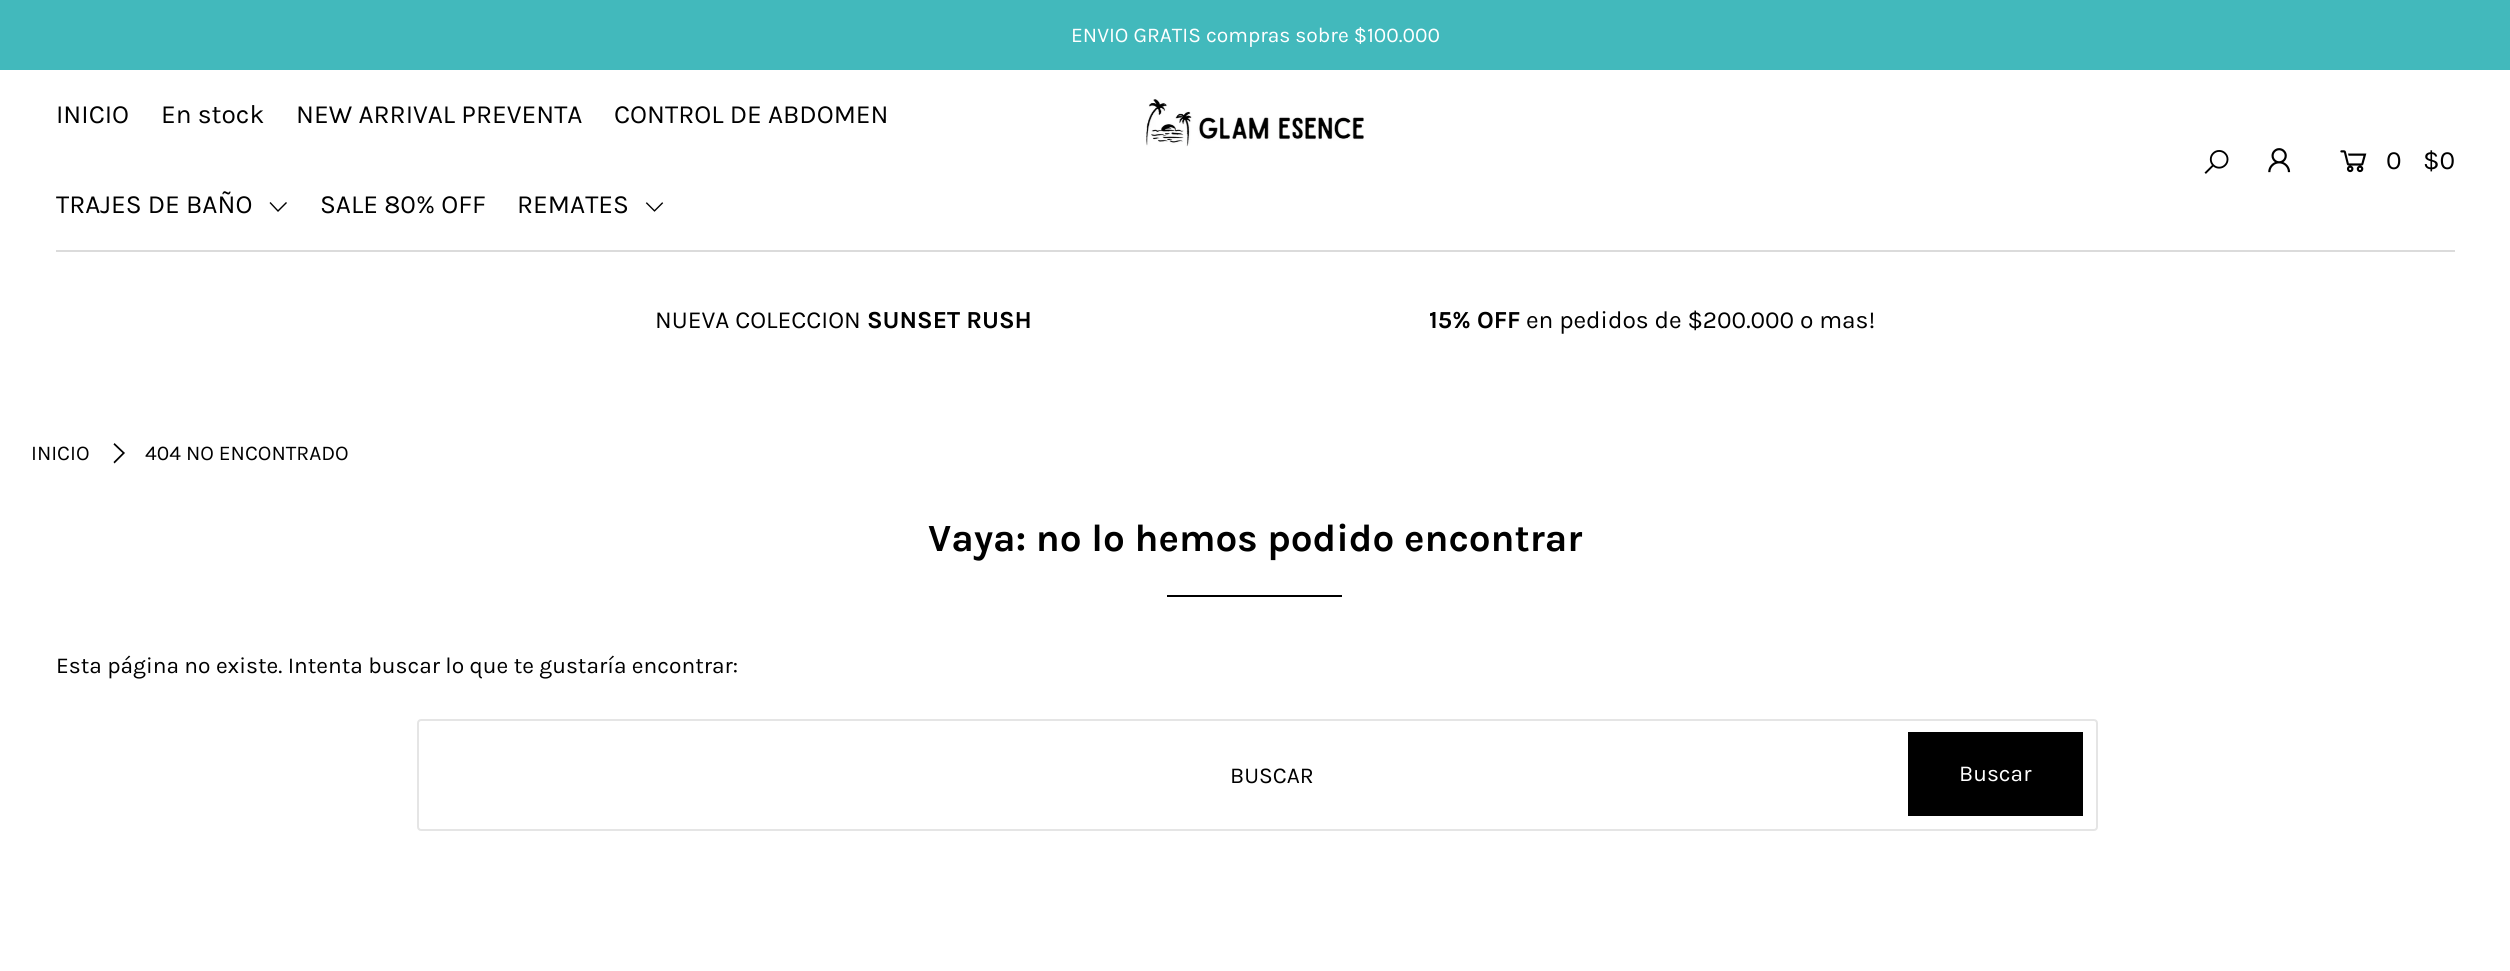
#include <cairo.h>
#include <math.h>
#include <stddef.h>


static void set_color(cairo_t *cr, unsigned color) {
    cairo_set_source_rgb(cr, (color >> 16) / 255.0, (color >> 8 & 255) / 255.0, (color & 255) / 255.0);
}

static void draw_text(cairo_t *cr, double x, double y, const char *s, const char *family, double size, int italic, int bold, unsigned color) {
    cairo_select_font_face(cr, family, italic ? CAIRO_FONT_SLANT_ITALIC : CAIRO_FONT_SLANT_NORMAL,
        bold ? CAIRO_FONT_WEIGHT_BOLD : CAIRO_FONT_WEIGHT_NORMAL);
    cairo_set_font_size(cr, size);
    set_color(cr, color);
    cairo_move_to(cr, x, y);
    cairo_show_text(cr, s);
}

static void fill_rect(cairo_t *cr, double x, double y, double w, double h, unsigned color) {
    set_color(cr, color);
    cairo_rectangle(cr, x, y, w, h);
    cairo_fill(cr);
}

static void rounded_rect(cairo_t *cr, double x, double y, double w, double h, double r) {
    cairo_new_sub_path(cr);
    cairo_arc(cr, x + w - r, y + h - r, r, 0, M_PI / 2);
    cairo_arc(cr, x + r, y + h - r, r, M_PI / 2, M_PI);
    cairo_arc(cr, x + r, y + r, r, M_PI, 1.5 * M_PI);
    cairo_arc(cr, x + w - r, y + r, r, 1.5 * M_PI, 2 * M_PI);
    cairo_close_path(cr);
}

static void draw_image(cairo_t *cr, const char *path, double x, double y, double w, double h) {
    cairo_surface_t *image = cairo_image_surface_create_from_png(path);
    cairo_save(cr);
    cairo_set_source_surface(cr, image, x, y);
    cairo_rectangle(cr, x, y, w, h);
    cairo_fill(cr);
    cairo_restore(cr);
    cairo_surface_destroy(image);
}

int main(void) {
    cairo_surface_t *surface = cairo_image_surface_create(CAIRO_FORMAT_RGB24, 2510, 971);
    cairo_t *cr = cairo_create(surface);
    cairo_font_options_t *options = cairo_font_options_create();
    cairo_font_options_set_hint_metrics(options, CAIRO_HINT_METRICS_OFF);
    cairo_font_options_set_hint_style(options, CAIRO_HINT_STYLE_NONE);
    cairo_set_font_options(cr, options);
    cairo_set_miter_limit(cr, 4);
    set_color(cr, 0xFFFFFF);
    cairo_paint(cr);
    fill_rect(cr, 0, 0, 2510, 70, 0x42B9BC);
    draw_text(cr, 1071, 42, "ENVIO GRATIS compras sobre $100.000", "Karla", 21, 0, 0, 0xFFFFFF);
    fill_rect(cr, 56, 250, 2399, 2, 0xDBDBDB);
    draw_text(cr, 56, 123, "INICIO", "Karla", 26.25, 0, 0, 0x000000);
    draw_text(cr, 161, 123, "En stock", "Karla", 26.25, 0, 0, 0x000000);
    draw_text(cr, 296, 123, "NEW ARRIVAL PREVENTA", "Karla", 26.25, 0, 0, 0x000000);
    draw_text(cr, 614, 123, "CONTROL DE ABDOMEN", "Karla", 26.25, 0, 0, 0x000000);
    draw_text(cr, 56, 213, "TRAJES DE BAÑO", "Karla", 26.25, 0, 0, 0x000000);
    cairo_new_path(cr);
    cairo_move_to(cr, 270.5, 202);
    cairo_line_to(cr, 278, 210);
    cairo_line_to(cr, 286, 202);
    cairo_line_to(cr, 287, 203);
    cairo_line_to(cr, 278, 212);
    cairo_line_to(cr, 269.5, 203);
    cairo_close_path(cr);
    cairo_fill(cr);
    draw_text(cr, 320, 213, "SALE 80% OFF", "Karla", 26.25, 0, 0, 0x000000);
    draw_text(cr, 517, 213, "REMATES", "Karla", 26.25, 0, 0, 0x000000);
    draw_image(cr, "assets/img1.png", 645, 202, 19, 10);
    draw_image(cr, "assets/img2.png", 1146, 99, 218, 48);
    draw_image(cr, "assets/img3.png", 2204, 150, 25, 24);
    draw_image(cr, "assets/img4.png", 2268, 148, 23, 25);
    draw_image(cr, "assets/img5.png", 2340, 150, 27, 23);
    draw_text(cr, 2386, 169, "0", "Karla", 26.25, 0, 0, 0x000000);
    draw_text(cr, 2423, 169, "$0", "Karla", 26.25, 0, 0, 0x000000);
    draw_text(cr, 655, 328, "NUEVA COLECCION", "Karla", 24.5, 0, 0, 0x000000);
    draw_text(cr, 867, 328, "SUNSET RUSH", "Karla", 24.5, 0, 1, 0x000000);
    draw_text(cr, 1429, 328, "15% OFF", "Karla", 24.5, 0, 1, 0x000000);
    draw_text(cr, 1526, 328, "en pedidos de $200.000 o mas!", "Karla", 24.5, 0, 0, 0x000000);
    draw_text(cr, 31, 460, "INICIO", "Karla", 21, 0, 0, 0x000000);
    cairo_new_path(cr);
    cairo_move_to(cr, 114.5, 443);
    cairo_line_to(cr, 125, 453);
    cairo_line_to(cr, 114.5, 463.5);
    cairo_line_to(cr, 113.5, 462);
    cairo_line_to(cr, 122.5, 453);
    cairo_line_to(cr, 113.5, 444.5);
    cairo_close_path(cr);
    cairo_fill(cr);
    draw_text(cr, 145, 460, "404 NO ENCONTRADO", "Karla", 21, 0, 0, 0x000000);
    draw_text(cr, 928, 551, "Vaya: no lo hemos podido encontrar", "Karla", 38.5, 0, 1, 0x000000);
    fill_rect(cr, 1167, 595, 175, 2, 0x000000);
    draw_text(cr, 56, 673, "Esta página no existe. Intenta buscar lo que te gustaría encontrar:", "Karla", 22.75, 0, 0, 0x000000);
    rounded_rect(cr, 418, 720, 1679, 110, 3);
    set_color(cr, 0xE5E5E5);
    cairo_stroke(cr);
    draw_text(cr, 1230, 783, "BUSCAR", "Karla", 22.75, 0, 0, 0x000000);
    fill_rect(cr, 1908, 732, 175, 84, 0x000000);
    draw_text(cr, 1959, 781, "Buscar", "Karla", 22.75, 0, 0, 0xFFFFFF);
    cairo_surface_write_to_png(surface, "output.png");
    cairo_font_options_destroy(options);
    cairo_destroy(cr);
    cairo_surface_destroy(surface);
    return 0;
}
